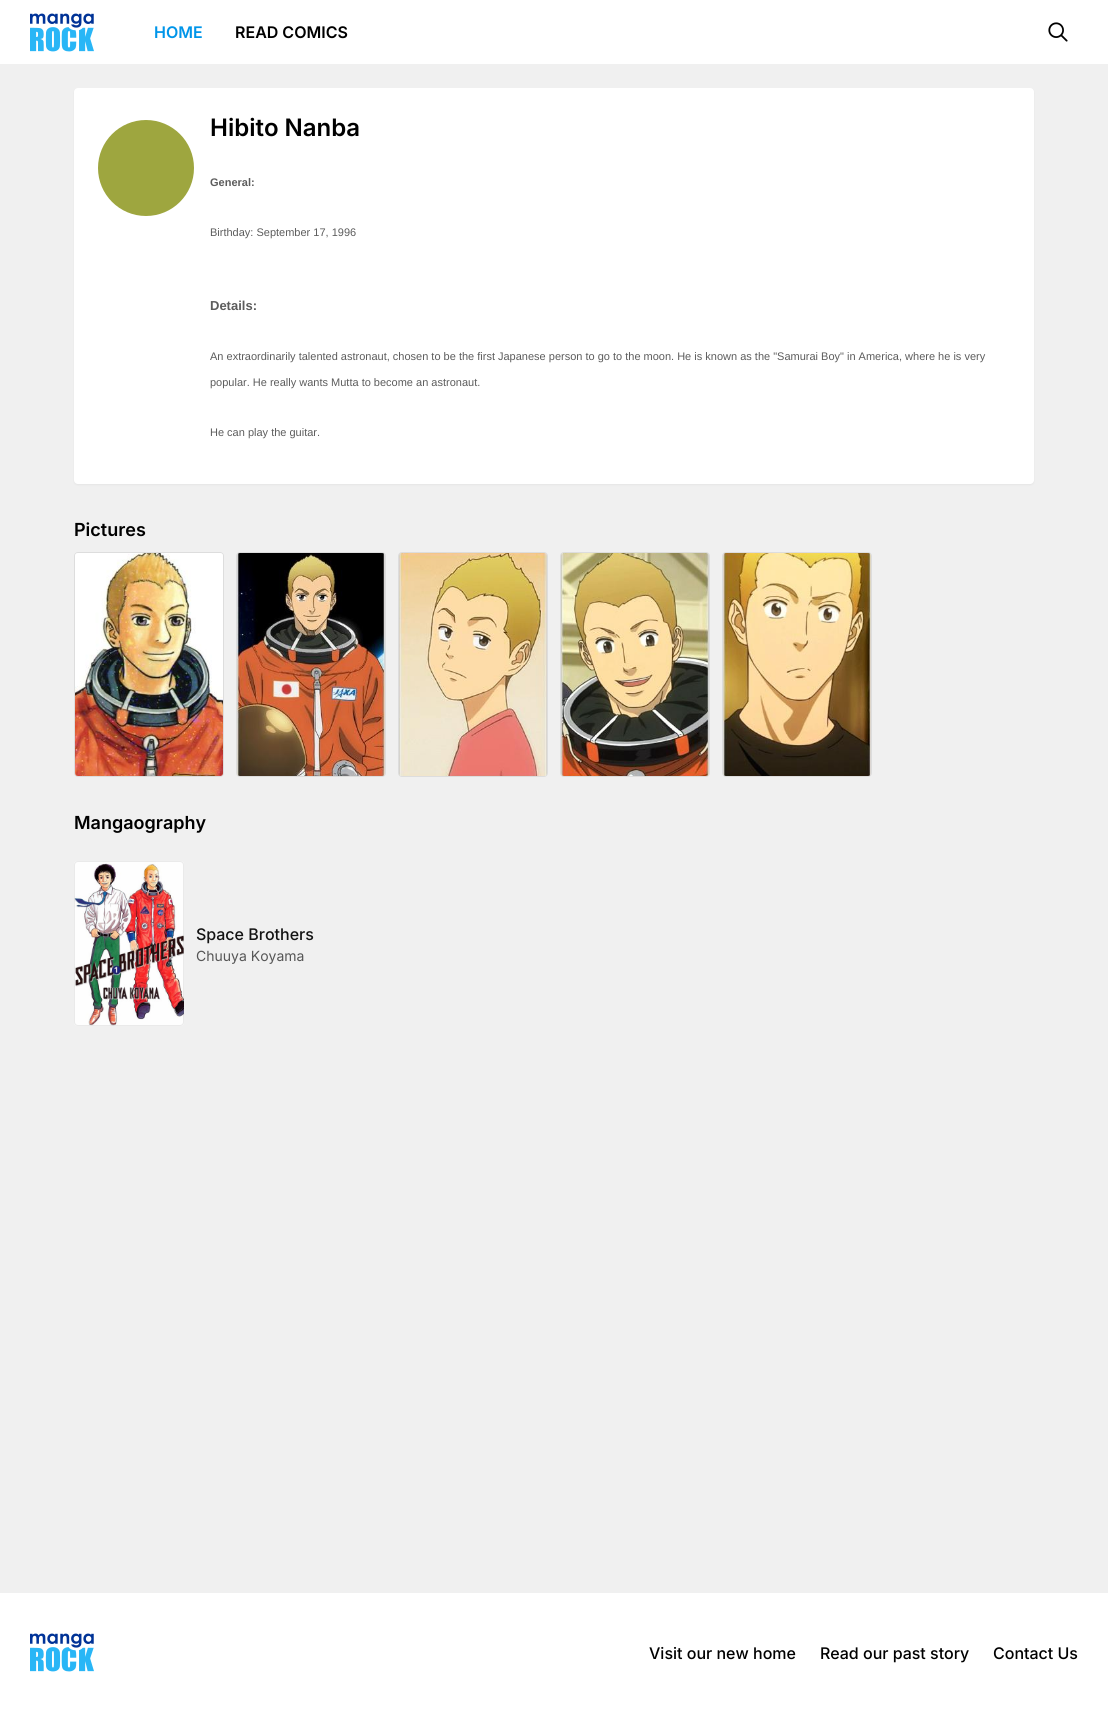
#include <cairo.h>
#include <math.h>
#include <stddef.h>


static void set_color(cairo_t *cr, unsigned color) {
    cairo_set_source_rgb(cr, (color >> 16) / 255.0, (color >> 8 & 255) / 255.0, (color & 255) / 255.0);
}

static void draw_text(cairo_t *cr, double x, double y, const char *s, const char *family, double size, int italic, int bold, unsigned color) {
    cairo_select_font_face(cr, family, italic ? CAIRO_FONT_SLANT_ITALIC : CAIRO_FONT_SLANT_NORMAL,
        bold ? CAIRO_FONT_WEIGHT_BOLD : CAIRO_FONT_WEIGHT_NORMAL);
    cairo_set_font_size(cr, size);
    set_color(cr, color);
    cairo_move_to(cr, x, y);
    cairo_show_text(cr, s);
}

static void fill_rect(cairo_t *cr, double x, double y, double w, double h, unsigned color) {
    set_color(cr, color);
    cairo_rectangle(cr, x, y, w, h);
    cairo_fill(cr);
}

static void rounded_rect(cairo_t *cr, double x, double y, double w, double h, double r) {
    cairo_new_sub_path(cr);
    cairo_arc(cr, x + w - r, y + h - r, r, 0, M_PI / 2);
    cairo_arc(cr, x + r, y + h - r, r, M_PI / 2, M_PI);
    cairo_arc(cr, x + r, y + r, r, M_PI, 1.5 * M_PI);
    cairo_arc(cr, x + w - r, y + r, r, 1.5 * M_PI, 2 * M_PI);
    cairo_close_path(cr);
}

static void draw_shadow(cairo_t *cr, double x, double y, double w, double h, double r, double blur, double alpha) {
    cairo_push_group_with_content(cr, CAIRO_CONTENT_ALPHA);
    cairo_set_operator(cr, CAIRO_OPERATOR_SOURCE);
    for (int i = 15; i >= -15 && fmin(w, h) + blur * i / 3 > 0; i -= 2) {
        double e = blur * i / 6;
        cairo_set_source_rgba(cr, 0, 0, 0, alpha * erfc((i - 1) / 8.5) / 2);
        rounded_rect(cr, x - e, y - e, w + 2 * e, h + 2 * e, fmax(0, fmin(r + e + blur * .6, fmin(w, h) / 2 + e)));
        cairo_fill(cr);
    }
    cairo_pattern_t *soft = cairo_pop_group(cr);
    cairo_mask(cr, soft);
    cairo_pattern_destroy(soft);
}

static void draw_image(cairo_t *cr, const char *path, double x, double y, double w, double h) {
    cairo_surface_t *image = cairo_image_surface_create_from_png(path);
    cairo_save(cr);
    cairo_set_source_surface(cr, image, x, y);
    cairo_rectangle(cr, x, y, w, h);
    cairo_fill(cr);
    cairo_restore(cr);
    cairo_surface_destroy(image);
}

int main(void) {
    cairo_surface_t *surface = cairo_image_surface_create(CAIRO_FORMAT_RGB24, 1108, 1732);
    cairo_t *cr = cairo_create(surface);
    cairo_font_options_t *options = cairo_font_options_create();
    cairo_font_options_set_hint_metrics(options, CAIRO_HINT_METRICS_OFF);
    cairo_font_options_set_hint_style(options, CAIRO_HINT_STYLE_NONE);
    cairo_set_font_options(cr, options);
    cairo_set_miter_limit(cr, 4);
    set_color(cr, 0xFFFFFF);
    cairo_paint(cr);
    draw_image(cr, "assets/img1.png", 30, 13, 64, 39);
    draw_text(cr, 154, 38, "HOME", "Inter SemiBold", 16, 0, 0, 0x0095E9);
    draw_text(cr, 235, 38, "READ COMICS", "Inter SemiBold", 16, 0, 0, 0x000000);
    draw_image(cr, "assets/img2.png", 1048, 22, 20, 20);
    fill_rect(cr, 0, 64, 1108, 1529, 0xF0F0F0);
    set_color(cr, 0x000000);
    draw_shadow(cr, 74, 89, 960, 396, 4, 1, 0.05);
    set_color(cr, 0xFFFFFF);
    rounded_rect(cr, 74, 88, 960, 396, 4);
    cairo_fill(cr);
    set_color(cr, 0x9EA63F);
    cairo_arc(cr, 146, 168, 48, 0, 2 * M_PI);
    cairo_fill(cr);
    draw_text(cr, 210, 136, "Hibito Nanba", "Inter SemiBold", 24, 0, 0, 0x000000);
    draw_text(cr, 210, 186, "General:", "Liberation Sans", 11, 0, 1, 0x5C5C5C);
    draw_text(cr, 210, 236, "Birthday: September 17, 1996", "Liberation Sans", 11, 0, 0, 0x5C5C5C);
    draw_text(cr, 210, 310, "Details:", "Liberation Sans", 13, 0, 1, 0x5C5C5C);
    draw_text(cr, 210, 360, "An extraordinarily talented astronaut, chosen to be the first Japanese person to go to the moon. He is known as the \"Samurai Boy\" in America, where he is very", "Liberation Sans", 11, 0, 0, 0x5C5C5C);
    draw_text(cr, 210, 386, "popular. He really wants Mutta to become an astronaut.", "Liberation Sans", 11, 0, 0, 0x5C5C5C);
    draw_text(cr, 210, 436, "He can play the guitar.", "Liberation Sans", 11, 0, 0, 0x5C5C5C);
    draw_text(cr, 74, 536, "Pictures", "Inter SemiBold", 18, 0, 0, 0x000000);
    rounded_rect(cr, 74.5, 552.5, 149, 224, 3.5);
    set_color(cr, 0xDDDDDD);
    cairo_set_line_width(cr, 1);
    cairo_stroke(cr);
    draw_image(cr, "assets/img3.png", 75, 553, 148, 223);
    rounded_rect(cr, 236.5, 552.5, 149, 224, 3.5);
    cairo_stroke(cr);
    draw_image(cr, "assets/img4.png", 237, 553, 148, 223);
    rounded_rect(cr, 398.5, 552.5, 149, 224, 3.5);
    cairo_stroke(cr);
    draw_image(cr, "assets/img5.png", 399, 553, 148, 223);
    rounded_rect(cr, 560.5, 552.5, 149, 224, 3.5);
    cairo_stroke(cr);
    draw_image(cr, "assets/img6.png", 561, 553, 148, 223);
    rounded_rect(cr, 722.5, 552.5, 149, 224, 3.5);
    cairo_stroke(cr);
    draw_image(cr, "assets/img7.png", 723, 553, 148, 223);
    draw_text(cr, 74, 829, "Mangaography", "Inter SemiBold", 18, 0, 0, 0x000000);
    draw_image(cr, "assets/img8.png", 74, 861, 110, 165);
    rounded_rect(cr, 74.5, 861.5, 109, 164, 3.5);
    cairo_set_source_rgba(cr, 0, 0, 0, 0.08);
    cairo_stroke(cr);
    draw_text(cr, 196, 940, "Space Brothers", "Inter Medium", 16, 0, 0, 0x131313);
    draw_text(cr, 196, 961, "Chuuya Koyama", "Inter", 14, 0, 0, 0x565656);
    draw_image(cr, "assets/img1.png", 30, 1633, 64, 39);
    draw_text(cr, 649, 1659, "Visit our new home", "Inter Medium", 16, 0, 0, 0x000000);
    draw_text(cr, 820, 1659, "Read our past story", "Inter Medium", 16, 0, 0, 0x000000);
    draw_text(cr, 993, 1659, "Contact Us", "Inter Medium", 16, 0, 0, 0x000000);
    cairo_surface_write_to_png(surface, "output.png");
    cairo_font_options_destroy(options);
    cairo_destroy(cr);
    cairo_surface_destroy(surface);
    return 0;
}
